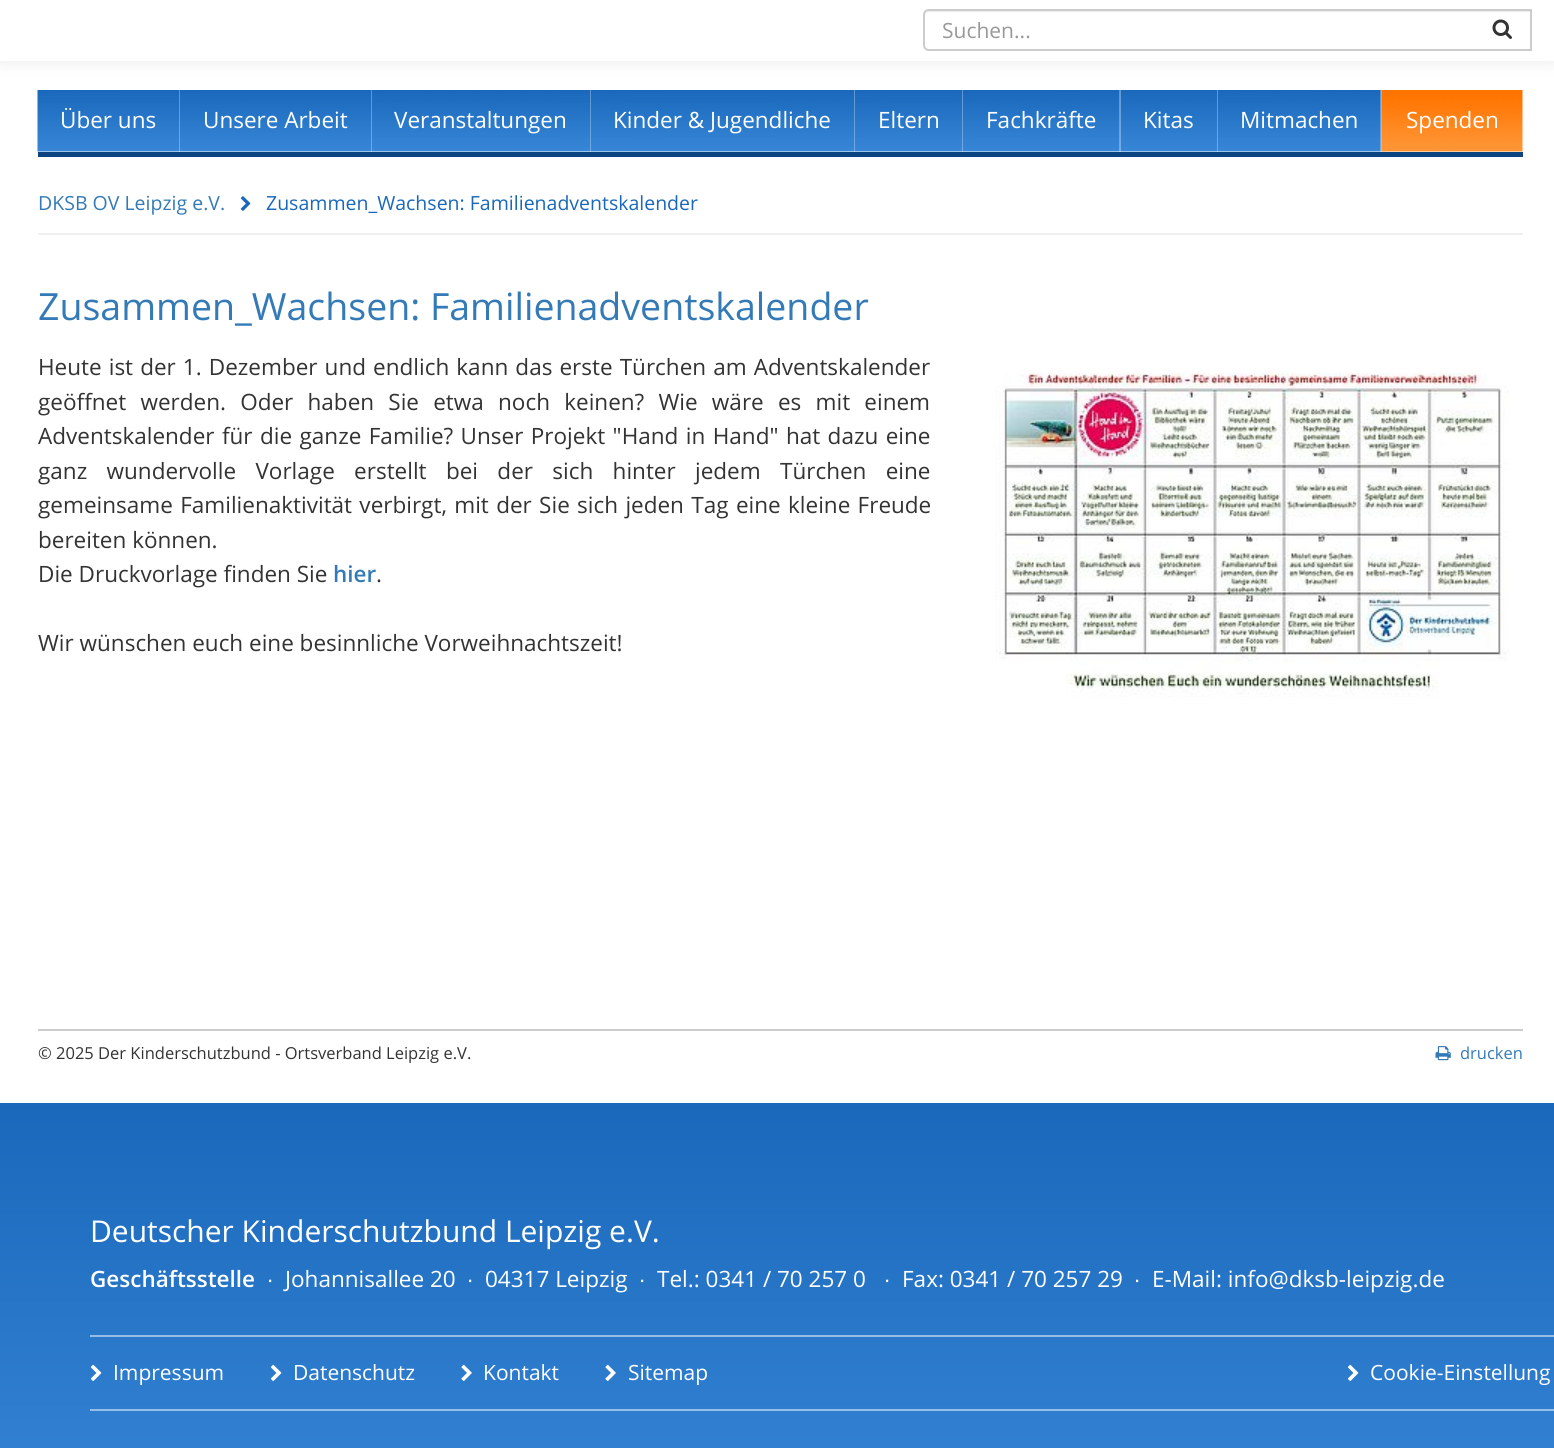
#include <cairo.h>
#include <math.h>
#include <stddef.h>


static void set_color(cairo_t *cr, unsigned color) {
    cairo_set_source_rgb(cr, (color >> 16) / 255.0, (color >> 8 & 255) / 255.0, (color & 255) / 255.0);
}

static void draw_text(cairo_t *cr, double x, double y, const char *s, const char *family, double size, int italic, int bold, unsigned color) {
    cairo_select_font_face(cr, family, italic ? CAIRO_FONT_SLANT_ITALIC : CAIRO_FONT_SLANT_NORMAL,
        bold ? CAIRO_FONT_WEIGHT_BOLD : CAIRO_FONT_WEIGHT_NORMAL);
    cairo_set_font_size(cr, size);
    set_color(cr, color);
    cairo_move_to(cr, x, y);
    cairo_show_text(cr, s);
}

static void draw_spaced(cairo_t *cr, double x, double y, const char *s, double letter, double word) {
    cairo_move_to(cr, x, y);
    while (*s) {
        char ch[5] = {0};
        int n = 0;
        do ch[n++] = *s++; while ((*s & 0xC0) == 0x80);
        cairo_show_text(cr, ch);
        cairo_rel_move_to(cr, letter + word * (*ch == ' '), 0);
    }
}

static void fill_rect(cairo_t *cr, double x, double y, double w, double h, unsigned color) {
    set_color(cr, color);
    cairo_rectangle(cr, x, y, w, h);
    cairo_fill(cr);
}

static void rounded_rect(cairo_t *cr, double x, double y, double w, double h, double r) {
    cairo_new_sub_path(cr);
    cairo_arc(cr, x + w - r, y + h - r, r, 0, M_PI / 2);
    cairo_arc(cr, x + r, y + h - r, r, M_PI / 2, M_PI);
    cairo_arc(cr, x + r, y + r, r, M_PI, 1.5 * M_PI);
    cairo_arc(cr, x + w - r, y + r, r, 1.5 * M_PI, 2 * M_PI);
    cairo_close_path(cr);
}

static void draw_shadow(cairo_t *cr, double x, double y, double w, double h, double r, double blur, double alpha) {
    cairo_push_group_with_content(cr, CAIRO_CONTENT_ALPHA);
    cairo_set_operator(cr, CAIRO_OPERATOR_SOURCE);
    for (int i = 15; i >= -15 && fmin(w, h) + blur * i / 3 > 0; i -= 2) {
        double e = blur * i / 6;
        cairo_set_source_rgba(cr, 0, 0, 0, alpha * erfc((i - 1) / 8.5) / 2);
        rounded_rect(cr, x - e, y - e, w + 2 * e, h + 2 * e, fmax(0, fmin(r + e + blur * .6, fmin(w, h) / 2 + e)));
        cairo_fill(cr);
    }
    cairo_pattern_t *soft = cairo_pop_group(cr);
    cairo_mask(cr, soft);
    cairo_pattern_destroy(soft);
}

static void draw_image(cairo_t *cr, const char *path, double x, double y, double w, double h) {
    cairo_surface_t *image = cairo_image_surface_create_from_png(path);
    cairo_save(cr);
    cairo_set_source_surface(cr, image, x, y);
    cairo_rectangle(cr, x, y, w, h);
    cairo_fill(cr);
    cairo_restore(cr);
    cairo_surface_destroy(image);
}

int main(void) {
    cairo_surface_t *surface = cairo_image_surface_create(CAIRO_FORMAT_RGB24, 1554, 1448);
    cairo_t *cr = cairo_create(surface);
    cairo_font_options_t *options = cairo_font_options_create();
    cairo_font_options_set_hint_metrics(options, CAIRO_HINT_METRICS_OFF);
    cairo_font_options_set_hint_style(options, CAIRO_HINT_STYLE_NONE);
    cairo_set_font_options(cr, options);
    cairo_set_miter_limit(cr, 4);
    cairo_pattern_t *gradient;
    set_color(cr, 0xFFFFFF);
    cairo_paint(cr);
    set_color(cr, 0x000000);
    draw_shadow(cr, 0, 0, 1554, 60, 0, 9, 0.1);
    fill_rect(cr, 0, 0, 1554, 61, 0xFFFFFF);
    set_color(cr, 0xECECEC);
    cairo_new_path(cr);
    cairo_move_to(cr, 928, 12);
    cairo_line_to(cr, 1530, 12);
    cairo_line_to(cr, 1530, 11);
    cairo_line_to(cr, 929, 11);
    cairo_curve_to(cr, 926, 11, 924, 13, 924, 16);
    cairo_curve_to(cr, 924, 14, 926, 12, 928, 12);
    cairo_close_path(cr);
    cairo_fill(cr);
    cairo_new_path(cr);
    cairo_move_to(cr, 929, 10);
    cairo_line_to(cr, 1531, 10);
    cairo_line_to(cr, 1531, 50);
    cairo_line_to(cr, 929, 50);
    cairo_curve_to(cr, 926, 50, 924, 48, 924, 45);
    cairo_line_to(cr, 924, 15);
    cairo_curve_to(cr, 924, 12, 926, 10, 929, 10);
    cairo_close_path(cr);
    set_color(cr, 0xCCCCCC);
    cairo_stroke(cr);
    draw_text(cr, 942, 38, "Suchen...", "Open Sans", 21, 0, 0, 0x999999);
    draw_image(cr, "assets/img1.png", 1492, 19, 20, 20);
    draw_image(cr, "assets/img2.png", 37, 90, 143, 62);
    cairo_set_source_rgba(cr, 1, 1, 1, 0.3);
    cairo_rectangle(cr, 179, 90, 1, 62);
    cairo_fill(cr);
    draw_text(cr, 60, 128, "Über uns", "Open Sans", 22.5, 0, 0, 0xFFFFFF);
    draw_image(cr, "assets/img3.png", 180, 90, 192, 62);
    cairo_set_source_rgba(cr, 1, 1, 1, 0.3);
    cairo_rectangle(cr, 371, 90, 1, 62);
    cairo_fill(cr);
    draw_text(cr, 203, 128, "Unsere Arbeit", "Open Sans", 22.5, 0, 0, 0xFFFFFF);
    draw_image(cr, "assets/img4.png", 372, 90, 219, 62);
    cairo_set_source_rgba(cr, 1, 1, 1, 0.3);
    cairo_rectangle(cr, 590, 90, 1, 62);
    cairo_fill(cr);
    draw_text(cr, 394, 128, "Veranstaltungen", "Open Sans", 22.5, 0, 0, 0xFFFFFF);
    draw_image(cr, "assets/img5.png", 591, 90, 264, 62);
    cairo_set_source_rgba(cr, 1, 1, 1, 0.3);
    cairo_rectangle(cr, 854, 90, 1, 62);
    cairo_fill(cr);
    draw_text(cr, 613, 128, "Kinder & Jugendliche", "Open Sans", 22.5, 0, 0, 0xFFFFFF);
    draw_image(cr, "assets/img6.png", 855, 90, 108, 62);
    cairo_set_source_rgba(cr, 1, 1, 1, 0.3);
    cairo_rectangle(cr, 962, 90, 1, 62);
    cairo_fill(cr);
    draw_text(cr, 878, 128, "Eltern", "Open Sans", 22.5, 0, 0, 0xFFFFFF);
    draw_image(cr, "assets/img7.png", 963, 90, 158, 62);
    cairo_set_source_rgba(cr, 1, 1, 1, 0.3);
    cairo_rectangle(cr, 1119, 90, 2, 62);
    cairo_fill(cr);
    draw_text(cr, 986, 128, "Fachkräfte", "Open Sans", 22.5, 0, 0, 0xFFFFFF);
    draw_image(cr, "assets/img8.png", 1120, 90, 98, 62);
    cairo_set_source_rgba(cr, 1, 1, 1, 0.3);
    cairo_rectangle(cr, 1217, 90, 1, 62);
    cairo_fill(cr);
    draw_text(cr, 1143, 128, "Kitas", "Open Sans", 22.5, 0, 0, 0xFFFFFF);
    draw_image(cr, "assets/img9.png", 1218, 90, 164, 62);
    cairo_set_source_rgba(cr, 1, 1, 1, 0.3);
    cairo_rectangle(cr, 1380, 90, 2, 62);
    cairo_fill(cr);
    draw_text(cr, 1240, 128, "Mitmachen", "Open Sans", 22.5, 0, 0, 0xFFFFFF);
    draw_image(cr, "assets/img10.png", 1381, 90, 142, 62);
    draw_text(cr, 1406, 128, "Spenden", "Open Sans", 22.5, 0, 0, 0xFFFFFF);
    fill_rect(cr, 38, 152, 1485, 5, 0x0B4480);
    fill_rect(cr, 38, 233, 1485, 2, 0xEFEFEF);
    draw_text(cr, 38, 210, "DKSB OV Leipzig e.V.", "Open Sans", 19.5, 0, 0, 0x337AB7);
    draw_image(cr, "assets/img11.png", 240, 196, 11, 15);
    draw_text(cr, 266, 210, "Zusammen_Wachsen: Familienadventskalender", "Open Sans", 19.5, 0, 0, 0x1A68BB);
    draw_text(cr, 38, 320, "Zusammen_Wachsen: Familienadventskalender", "Open Sans", 37.5, 0, 0, 0x337AB7);
    cairo_set_font_size(cr, 22.5);
    set_color(cr, 0x333333);
    draw_spaced(cr, 38, 375, "Heute ist der 1. Dezember und endlich kann das erste Türchen am Adventskalender", 0, 1.25);
    draw_spaced(cr, 38, 410, "geöffnet werden. Oder haben Sie etwa noch keinen? Wie wäre es mit einem", 0, 8.4);
    draw_spaced(cr, 38, 444, "Adventskalender für die ganze Familie? Unser Projekt \"Hand in Hand\" hat dazu eine", 0, 1.6);
    draw_spaced(cr, 38, 479, "ganz wundervolle Vorlage erstellt bei der sich hinter jedem Türchen eine", 0, 13.5);
    draw_spaced(cr, 38, 513, "gemeinsame Familienaktivität verbirgt, mit der Sie sich jeden Tag eine kleine Freude", 0, 1.5);
    draw_text(cr, 38, 548, "bereiten können.", "Open Sans", 22.5, 0, 0, 0x333333);
    draw_text(cr, 38, 582, "Die Druckvorlage finden Sie", "Open Sans", 22.5, 0, 0, 0x333333);
    draw_text(cr, 333, 582, "hier", "Open Sans SemiBold", 22.5, 0, 0, 0x337AB7);
    draw_text(cr, 376, 582, ".", "Open Sans", 22.5, 0, 0, 0x333333);
    draw_text(cr, 38, 651, "Wir wünschen euch eine besinnliche Vorweihnachtszeit!", "Open Sans", 22.5, 0, 0, 0x333333);
    draw_image(cr, "assets/img12.png", 995, 372, 514, 325);
    fill_rect(cr, 38, 1029, 1485, 2, 0xCDCDCD);
    draw_text(cr, 38, 1059, "© 2025 Der Kinderschutzbund - Ortsverband Leipzig e.V.", "Open Sans", 16.5, 0, 0, 0x333333);
    draw_image(cr, "assets/img13.png", 1435, 1046, 16, 15);
    draw_text(cr, 1460, 1059, "drucken", "Open Sans", 16.5, 0, 0, 0x337AB7);
    gradient = cairo_pattern_create_linear(777, 1103, 777, 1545);
    cairo_pattern_add_color_stop_rgba(gradient, 0, 0.102, 0.408, 0.733, 1);
    cairo_pattern_add_color_stop_rgba(gradient, 1, 0.22, 0.525, 0.843, 1);
    cairo_set_source(cr, gradient);
    cairo_pattern_destroy(gradient);
    cairo_rectangle(cr, 0, 1103, 1554, 345);
    cairo_fill(cr);
    draw_text(cr, 90, 1242, "Deutscher Kinderschutzbund Leipzig e.V.", "Open Sans", 30, 0, 0, 0xFFFFFF);
    draw_text(cr, 90, 1287, "Geschäftsstelle", "Open Sans SemiBold", 22.5, 0, 0, 0xFFFFFF);
    draw_text(cr, 267, 1287, "∙", "Liberation Sans", 22.5, 0, 0, 0xFFFFFF);
    draw_text(cr, 285, 1287, "Johannisallee 20", "Open Sans", 22.5, 0, 0, 0xFFFFFF);
    draw_text(cr, 467, 1287, "∙", "Liberation Sans", 22.5, 0, 0, 0xFFFFFF);
    draw_text(cr, 485, 1287, "04317 Leipzig", "Open Sans", 22.5, 0, 0, 0xFFFFFF);
    draw_text(cr, 639, 1287, "∙", "Liberation Sans", 22.5, 0, 0, 0xFFFFFF);
    draw_text(cr, 657, 1287, "Tel.: 0341 / 70 257 0", "Open Sans", 22.5, 0, 0, 0xFFFFFF);
    draw_text(cr, 884, 1287, "∙", "Liberation Sans", 22.5, 0, 0, 0xFFFFFF);
    draw_text(cr, 902, 1287, "Fax: 0341 / 70 257 29", "Open Sans", 22.5, 0, 0, 0xFFFFFF);
    draw_text(cr, 1134, 1287, "∙", "Liberation Sans", 22.5, 0, 0, 0xFFFFFF);
    draw_text(cr, 1152, 1287, "E-Mail: info@dksb-leipzig.de", "Open Sans", 22.5, 0, 0, 0xFFFFFF);
    fill_rect(cr, 90, 1335, 1464, 2, 0x95BCE5);
    fill_rect(cr, 90, 1409, 1464, 2, 0x97BEE7);
    draw_image(cr, "assets/img14.png", 90, 1364, 12, 17);
    draw_text(cr, 113, 1380, "Impressum", "Open Sans", 21, 0, 0, 0xFFFFFF);
    draw_image(cr, "assets/img14.png", 270, 1364, 12, 17);
    draw_text(cr, 293, 1380, "Datenschutz", "Open Sans", 21, 0, 0, 0xFFFFFF);
    draw_image(cr, "assets/img15.png", 461, 1364, 11, 17);
    draw_text(cr, 483, 1380, "Kontakt", "Open Sans", 21, 0, 0, 0xFFFFFF);
    draw_image(cr, "assets/img15.png", 605, 1364, 11, 17);
    draw_text(cr, 628, 1380, "Sitemap", "Open Sans", 21, 0, 0, 0xFFFFFF);
    draw_image(cr, "assets/img14.png", 1347, 1364, 12, 17);
    draw_text(cr, 1370, 1380, "Cookie-Einstellung", "Open Sans", 21, 0, 0, 0xFFFFFF);
    cairo_surface_write_to_png(surface, "output.png");
    cairo_font_options_destroy(options);
    cairo_destroy(cr);
    cairo_surface_destroy(surface);
    return 0;
}
